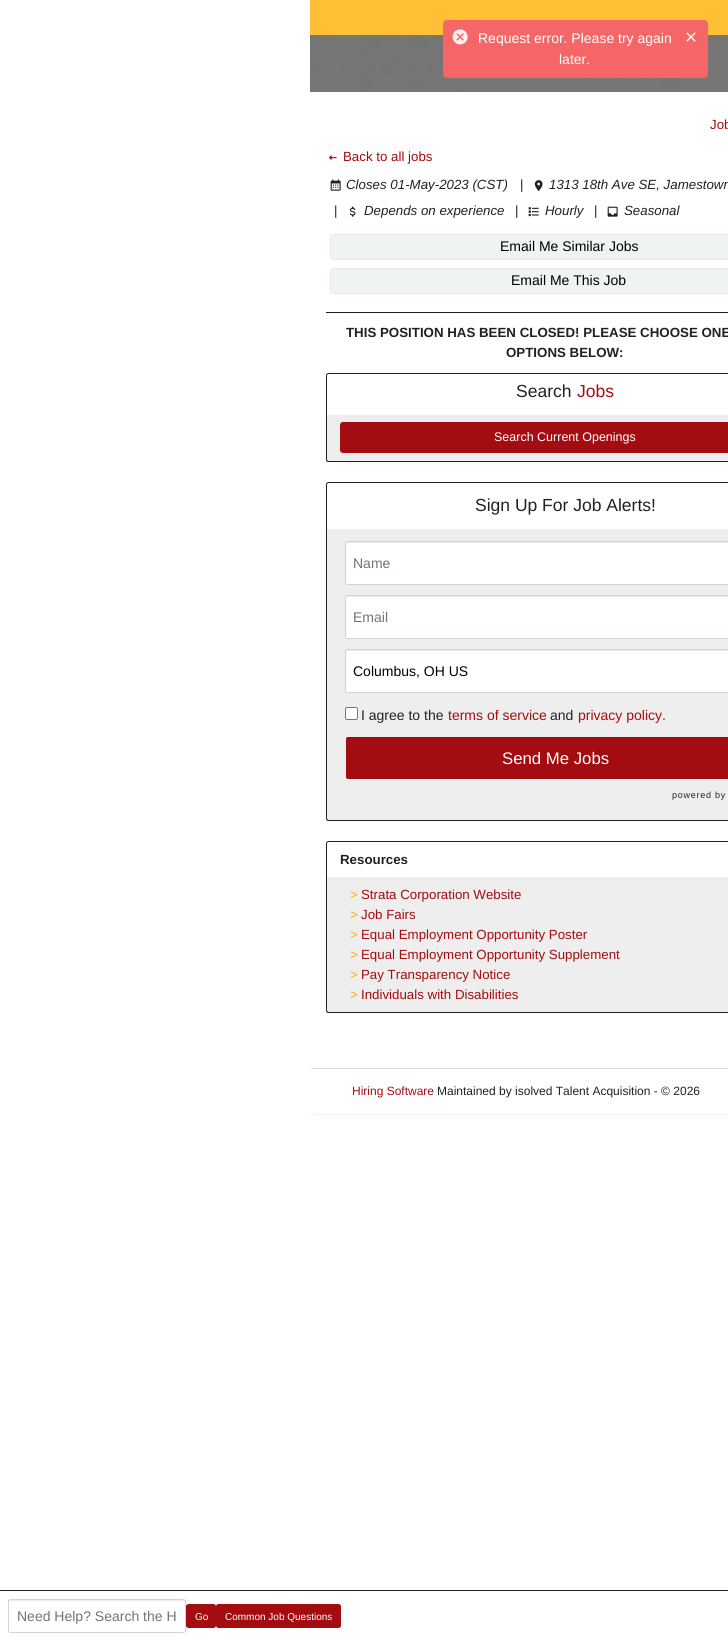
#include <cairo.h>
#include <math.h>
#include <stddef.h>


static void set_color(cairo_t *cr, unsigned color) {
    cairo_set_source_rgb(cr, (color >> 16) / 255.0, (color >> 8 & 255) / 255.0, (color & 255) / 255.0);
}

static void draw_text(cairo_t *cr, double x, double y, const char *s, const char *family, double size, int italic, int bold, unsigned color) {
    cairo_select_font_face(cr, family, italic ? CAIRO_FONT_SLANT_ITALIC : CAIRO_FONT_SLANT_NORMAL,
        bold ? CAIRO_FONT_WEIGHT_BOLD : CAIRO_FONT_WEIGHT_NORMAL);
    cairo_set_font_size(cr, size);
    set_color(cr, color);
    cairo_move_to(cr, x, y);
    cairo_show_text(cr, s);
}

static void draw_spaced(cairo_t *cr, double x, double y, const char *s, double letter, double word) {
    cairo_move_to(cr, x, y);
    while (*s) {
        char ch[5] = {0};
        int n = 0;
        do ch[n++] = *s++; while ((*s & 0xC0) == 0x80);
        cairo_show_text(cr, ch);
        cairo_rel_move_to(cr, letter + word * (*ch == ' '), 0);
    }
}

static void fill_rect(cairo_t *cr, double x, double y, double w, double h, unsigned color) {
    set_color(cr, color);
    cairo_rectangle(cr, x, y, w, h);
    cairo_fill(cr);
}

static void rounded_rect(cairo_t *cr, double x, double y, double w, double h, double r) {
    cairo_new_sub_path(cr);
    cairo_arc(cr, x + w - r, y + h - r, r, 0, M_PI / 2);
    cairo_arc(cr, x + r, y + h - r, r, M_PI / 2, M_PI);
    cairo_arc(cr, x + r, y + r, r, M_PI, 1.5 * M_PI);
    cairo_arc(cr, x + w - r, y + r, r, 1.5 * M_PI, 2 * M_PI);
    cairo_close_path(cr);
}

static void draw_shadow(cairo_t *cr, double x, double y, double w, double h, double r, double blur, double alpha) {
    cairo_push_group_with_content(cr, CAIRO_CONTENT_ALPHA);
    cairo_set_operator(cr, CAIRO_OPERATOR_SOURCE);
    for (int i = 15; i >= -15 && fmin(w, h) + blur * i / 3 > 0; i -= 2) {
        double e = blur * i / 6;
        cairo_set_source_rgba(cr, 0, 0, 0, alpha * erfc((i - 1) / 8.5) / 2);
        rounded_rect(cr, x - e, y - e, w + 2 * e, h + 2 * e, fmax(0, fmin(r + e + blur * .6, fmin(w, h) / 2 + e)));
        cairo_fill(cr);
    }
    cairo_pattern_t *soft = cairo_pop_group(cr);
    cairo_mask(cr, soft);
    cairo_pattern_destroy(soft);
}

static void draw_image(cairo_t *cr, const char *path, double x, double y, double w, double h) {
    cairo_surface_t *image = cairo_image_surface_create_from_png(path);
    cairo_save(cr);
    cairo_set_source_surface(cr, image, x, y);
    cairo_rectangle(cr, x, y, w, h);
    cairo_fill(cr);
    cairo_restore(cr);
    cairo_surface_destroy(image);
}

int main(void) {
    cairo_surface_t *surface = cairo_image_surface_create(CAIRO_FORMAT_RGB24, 728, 1641);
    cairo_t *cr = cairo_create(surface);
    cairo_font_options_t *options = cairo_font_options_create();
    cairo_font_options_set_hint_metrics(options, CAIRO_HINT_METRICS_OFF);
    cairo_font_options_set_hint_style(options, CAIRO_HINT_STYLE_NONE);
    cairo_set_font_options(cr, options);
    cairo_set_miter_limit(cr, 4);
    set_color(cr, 0xFFFFFF);
    cairo_paint(cr);
    set_color(cr, 0x000000);
    draw_shadow(cr, 310, 75, 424, 1040, 4, 0.5, 0.05);
    set_color(cr, 0xFFFFFF);
    rounded_rect(cr, 310, 74, 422, 1040, 4);
    cairo_fill(cr);
    draw_image(cr, "assets/img3.png", 310, 0, 418, 92);
    set_color(cr, 0xF65555);
    rounded_rect(cr, 443, 20, 265, 58, 4);
    cairo_fill(cr);
    draw_image(cr, "assets/img1.png", 452, 29, 16, 16);
    cairo_set_source_rgba(cr, 1, 1, 1, 0.1);
    rounded_rect(cr, 443, 20, 265, 58, 4);
    cairo_fill(cr);
    draw_text(cr, 478, 43, "Request error. Please try again", "Liberation Sans", 14, 0, 0, 0xFFFFFF);
    draw_text(cr, 559, 64, "later.", "Liberation Sans", 14, 0, 0, 0xFFFFFF);
    draw_image(cr, "assets/img2.png", 686, 32, 10, 10);
    draw_text(cr, 710, 129, "Job", "Liberation Sans", 13.3, 0, 0, 0xA30C10);
    draw_image(cr, "assets/img4.png", 328, 155, 9, 6);
    draw_text(cr, 343, 161, "Back to all jobs", "Liberation Sans", 13.3, 0, 0, 0xA30C10);
    draw_image(cr, "assets/img5.png", 330, 179, 11, 12);
    draw_text(cr, 346, 189, "Closes 01-May-2023 (CST)", "Liberation Sans", 13.3, 1, 0, 0x212121);
    draw_text(cr, 520, 189, "|", "Liberation Sans", 13.3, 0, 0, 0x212121);
    draw_image(cr, "assets/img6.png", 534, 180, 9, 12);
    draw_text(cr, 549, 189, "1313 18th Ave SE, Jamestown", "Liberation Sans", 13.3, 1, 0, 0x212121);
    draw_text(cr, 334, 215, "|", "Liberation Sans", 13.3, 0, 0, 0x212121);
    draw_image(cr, "assets/img7.png", 349, 206, 7, 11);
    draw_text(cr, 364, 215, "Depends on experience", "Liberation Sans", 13.3, 1, 0, 0x212121);
    draw_text(cr, 515, 215, "|", "Liberation Sans", 13.3, 0, 0, 0x212121);
    draw_image(cr, "assets/img8.png", 528, 207, 11, 10);
    draw_text(cr, 545, 215, "Hourly", "Liberation Sans", 13.3, 1, 0, 0x212121);
    draw_text(cr, 594, 215, "|", "Liberation Sans", 13.3, 0, 0, 0x212121);
    draw_image(cr, "assets/img9.png", 607, 206, 11, 11);
    draw_text(cr, 624, 215, "Seasonal", "Liberation Sans", 13.3, 1, 0, 0x212121);
    set_color(cr, 0xF0F3F4);
    rounded_rect(cr, 330, 234, 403, 26, 5);
    cairo_fill(cr);
    cairo_rectangle(cr, 330.5, 234.5, 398, 25);
    cairo_set_source_rgba(cr, 0, 0, 0, 0.04);
    cairo_set_line_width(cr, 1);
    cairo_stroke(cr);
    draw_text(cr, 500, 251, "Email Me Similar Jobs", "Liberation Sans", 14, 0, 0, 0x000000);
    set_color(cr, 0xF0F3F4);
    rounded_rect(cr, 330, 268, 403, 26, 5);
    cairo_fill(cr);
    cairo_rectangle(cr, 330.5, 268.5, 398, 25);
    cairo_set_source_rgba(cr, 0, 0, 0, 0.04);
    cairo_stroke(cr);
    draw_text(cr, 511, 285, "Email Me This Job", "Liberation Sans", 14, 0, 0, 0x000000);
    fill_rect(cr, 326, 312, 402, 1, 0x212121);
    draw_text(cr, 346, 337, "THIS POSITION HAS BEEN CLOSED! PLEASE CHOOSE ONE", "Liberation Sans", 13.3, 0, 1, 0x212121);
    draw_text(cr, 506, 357, "OPTIONS BELOW:", "Liberation Sans", 13.3, 0, 1, 0x212121);
    cairo_new_path(cr);
    cairo_move_to(cr, 328.5, 373.5);
    cairo_line_to(cr, 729.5, 373.5);
    cairo_curve_to(cr, 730.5, 373.5, 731.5, 374.5, 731.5, 375.5);
    cairo_line_to(cr, 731.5, 415.5);
    cairo_line_to(cr, 326.5, 415.5);
    cairo_line_to(cr, 326.5, 375.5);
    cairo_curve_to(cr, 326.5, 374.5, 327.5, 373.5, 328.5, 373.5);
    cairo_close_path(cr);
    cairo_stroke(cr);
    draw_text(cr, 516, 397, "Search", "Liberation Sans", 17.5, 0, 0, 0x212121);
    draw_text(cr, 577, 397, "Jobs", "Liberation Sans", 17.5, 0, 0, 0xA30C10);
    set_color(cr, 0xEEEEEE);
    cairo_new_path(cr);
    cairo_move_to(cr, 327, 415);
    cairo_line_to(cr, 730, 415);
    cairo_line_to(cr, 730, 459.5);
    cairo_curve_to(cr, 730, 460.5, 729.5, 461, 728.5, 461);
    cairo_line_to(cr, 328.5, 461);
    cairo_curve_to(cr, 327.5, 461, 327, 460.5, 327, 459.5);
    cairo_close_path(cr);
    cairo_fill(cr);
    set_color(cr, 0x212121);
    cairo_set_fill_rule(cr, CAIRO_FILL_RULE_EVEN_ODD);
    cairo_new_path(cr);
    cairo_move_to(cr, 326, 415);
    cairo_line_to(cr, 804, 415);
    cairo_line_to(cr, 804, 460);
    cairo_curve_to(cr, 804, 461, 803, 462, 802, 462);
    cairo_line_to(cr, 328, 462);
    cairo_curve_to(cr, 327, 462, 326, 461, 326, 460);
    cairo_close_path(cr);
    cairo_move_to(cr, 327, 415);
    cairo_line_to(cr, 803, 415);
    cairo_line_to(cr, 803, 460);
    cairo_curve_to(cr, 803, 460, 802, 461, 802, 461);
    cairo_line_to(cr, 328, 461);
    cairo_curve_to(cr, 328, 461, 327, 460, 327, 460);
    cairo_close_path(cr);
    cairo_fill(cr);
    set_color(cr, 0xA30C10);
    rounded_rect(cr, 340, 422, 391, 31, 3);
    cairo_fill(cr);
    draw_text(cr, 494, 441, "Search Current Openings", "Liberation Sans", 12.5, 0, 0, 0xFFFFFF);
    cairo_new_path(cr);
    cairo_move_to(cr, 328.5, 482.5);
    cairo_line_to(cr, 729.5, 482.5);
    cairo_curve_to(cr, 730.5, 482.5, 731.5, 483.5, 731.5, 484.5);
    cairo_line_to(cr, 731.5, 529.5);
    cairo_line_to(cr, 326.5, 529.5);
    cairo_line_to(cr, 326.5, 484.5);
    cairo_curve_to(cr, 326.5, 483.5, 327.5, 482.5, 328.5, 482.5);
    cairo_close_path(cr);
    set_color(cr, 0x212121);
    cairo_stroke(cr);
    draw_text(cr, 475, 511, "Sign Up For Job Alerts!", "Liberation Sans", 17.5, 0, 0, 0x212121);
    set_color(cr, 0xEEEEEE);
    cairo_new_path(cr);
    cairo_move_to(cr, 327, 529);
    cairo_line_to(cr, 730, 529);
    cairo_line_to(cr, 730, 818.5);
    cairo_curve_to(cr, 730, 819.5, 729.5, 820, 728.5, 820);
    cairo_line_to(cr, 328.5, 820);
    cairo_curve_to(cr, 327.5, 820, 327, 819.5, 327, 818.5);
    cairo_close_path(cr);
    cairo_fill(cr);
    set_color(cr, 0x212121);
    cairo_new_path(cr);
    cairo_move_to(cr, 326, 529);
    cairo_line_to(cr, 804, 529);
    cairo_line_to(cr, 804, 818);
    cairo_curve_to(cr, 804, 820, 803, 821, 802, 821);
    cairo_line_to(cr, 328, 821);
    cairo_curve_to(cr, 327, 821, 326, 820, 326, 818);
    cairo_close_path(cr);
    cairo_move_to(cr, 327, 529);
    cairo_line_to(cr, 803, 529);
    cairo_line_to(cr, 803, 818);
    cairo_curve_to(cr, 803, 819, 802, 820, 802, 820);
    cairo_line_to(cr, 328, 820);
    cairo_curve_to(cr, 328, 820, 327, 819, 327, 818);
    cairo_close_path(cr);
    cairo_fill(cr);
    set_color(cr, 0xFFFFFF);
    rounded_rect(cr, 346, 542, 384, 42, 1.5);
    cairo_fill(cr);
    cairo_set_source_rgba(cr, 0, 0, 0, 0.07);
    cairo_set_fill_rule(cr, CAIRO_FILL_RULE_WINDING);
    cairo_new_path(cr);
    cairo_move_to(cr, 348, 543);
    cairo_line_to(cr, 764, 543);
    cairo_line_to(cr, 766, 544);
    cairo_curve_to(cr, 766, 543, 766, 542, 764, 542);
    cairo_line_to(cr, 348, 542);
    cairo_curve_to(cr, 346, 542, 346, 543, 346, 544);
    cairo_close_path(cr);
    cairo_fill(cr);
    rounded_rect(cr, 345.5, 541.5, 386, 43, 2);
    set_color(cr, 0xCED4DA);
    cairo_stroke(cr);
    draw_text(cr, 353, 568, "Name", "Liberation Sans", 14, 0, 0, 0x6C757D);
    set_color(cr, 0xFFFFFF);
    rounded_rect(cr, 346, 596, 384, 42, 1.5);
    cairo_fill(cr);
    cairo_set_source_rgba(cr, 0, 0, 0, 0.07);
    cairo_new_path(cr);
    cairo_move_to(cr, 348, 597);
    cairo_line_to(cr, 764, 597);
    cairo_line_to(cr, 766, 598);
    cairo_curve_to(cr, 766, 597, 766, 596, 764, 596);
    cairo_line_to(cr, 348, 596);
    cairo_curve_to(cr, 346, 596, 346, 597, 346, 598);
    cairo_close_path(cr);
    cairo_fill(cr);
    rounded_rect(cr, 345.5, 595.5, 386, 43, 2);
    set_color(cr, 0xCED4DA);
    cairo_stroke(cr);
    draw_text(cr, 353, 622, "Email", "Liberation Sans", 14, 0, 0, 0x6C757D);
    set_color(cr, 0xFFFFFF);
    rounded_rect(cr, 346, 650, 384, 42, 1.5);
    cairo_fill(cr);
    cairo_set_source_rgba(cr, 0, 0, 0, 0.07);
    cairo_new_path(cr);
    cairo_move_to(cr, 348, 651);
    cairo_line_to(cr, 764, 651);
    cairo_line_to(cr, 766, 652);
    cairo_curve_to(cr, 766, 651, 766, 650, 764, 650);
    cairo_line_to(cr, 348, 650);
    cairo_curve_to(cr, 346, 650, 346, 651, 346, 652);
    cairo_close_path(cr);
    cairo_fill(cr);
    rounded_rect(cr, 345.5, 649.5, 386, 43, 2);
    set_color(cr, 0xCED4DA);
    cairo_stroke(cr);
    draw_text(cr, 353, 676, "Columbus, OH US", "Liberation Sans", 14, 0, 0, 0x000000);
    set_color(cr, 0xFFFFFF);
    rounded_rect(cr, 345.5, 707.5, 12, 12, 1.5);
    cairo_fill_preserve(cr);
    set_color(cr, 0x767676);
    cairo_stroke(cr);
    draw_text(cr, 361, 720, "I agree to the", "Liberation Sans", 14, 0, 0, 0x212121);
    draw_text(cr, 448, 720, "terms of service", "Liberation Sans", 14, 0, 0, 0xA30C10);
    draw_text(cr, 550, 720, "and", "Liberation Sans", 14, 0, 0, 0x212121);
    draw_text(cr, 578, 720, "privacy policy.", "Liberation Sans", 14, 0, 0, 0xA30C10);
    rounded_rect(cr, 346, 737, 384, 42, 2);
    cairo_fill(cr);
    cairo_set_source_rgba(cr, 0, 0, 0, 0.07);
    cairo_new_path(cr);
    cairo_move_to(cr, 348, 738);
    cairo_line_to(cr, 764, 738);
    cairo_curve_to(cr, 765, 738, 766, 739, 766, 740);
    cairo_line_to(cr, 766, 738);
    cairo_line_to(cr, 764, 737);
    cairo_line_to(cr, 347, 737);
    cairo_curve_to(cr, 346, 738, 346, 739, 346, 740);
    cairo_curve_to(cr, 346, 739, 347, 738, 348, 738);
    cairo_close_path(cr);
    cairo_fill(cr);
    draw_text(cr, 502, 764, "Send Me Jobs", "Liberation Sans", 16.75, 0, 0, 0xFFFFFF);
    cairo_set_font_size(cr, 9);
    set_color(cr, 0x212121);
    draw_spaced(cr, 672, 798, "powered by", 0.75, 0);
    cairo_new_path(cr);
    cairo_move_to(cr, 328.5, 841.5);
    cairo_line_to(cr, 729.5, 841.5);
    cairo_curve_to(cr, 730.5, 841.5, 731.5, 842.5, 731.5, 843.5);
    cairo_line_to(cr, 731.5, 877.5);
    cairo_line_to(cr, 326.5, 877.5);
    cairo_line_to(cr, 326.5, 843.5);
    cairo_curve_to(cr, 326.5, 842.5, 327.5, 841.5, 328.5, 841.5);
    cairo_close_path(cr);
    cairo_stroke(cr);
    draw_text(cr, 340, 864, "Resources", "Liberation Sans", 13.3, 0, 1, 0x212121);
    set_color(cr, 0xEEEEEE);
    cairo_new_path(cr);
    cairo_move_to(cr, 327, 877);
    cairo_line_to(cr, 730, 877);
    cairo_line_to(cr, 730, 1010.5);
    cairo_curve_to(cr, 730, 1011.5, 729.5, 1012, 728.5, 1012);
    cairo_line_to(cr, 328.5, 1012);
    cairo_curve_to(cr, 327.5, 1012, 327, 1011.5, 327, 1010.5);
    cairo_close_path(cr);
    cairo_fill(cr);
    set_color(cr, 0x212121);
    cairo_set_fill_rule(cr, CAIRO_FILL_RULE_EVEN_ODD);
    cairo_new_path(cr);
    cairo_move_to(cr, 326, 877);
    cairo_line_to(cr, 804, 877);
    cairo_line_to(cr, 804, 1010);
    cairo_curve_to(cr, 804, 1012, 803, 1013, 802, 1013);
    cairo_line_to(cr, 328, 1013);
    cairo_curve_to(cr, 327, 1013, 326, 1012, 326, 1010);
    cairo_close_path(cr);
    cairo_move_to(cr, 327, 877);
    cairo_line_to(cr, 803, 877);
    cairo_line_to(cr, 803, 1010);
    cairo_curve_to(cr, 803, 1011, 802, 1012, 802, 1012);
    cairo_line_to(cr, 328, 1012);
    cairo_curve_to(cr, 328, 1012, 327, 1011, 327, 1010);
    cairo_close_path(cr);
    cairo_fill(cr);
    draw_text(cr, 350, 899, ">", "Liberation Sans", 13.3, 0, 0, 0xFEB00F);
    draw_text(cr, 361, 899, "Strata Corporation Website", "Liberation Sans", 13.3, 0, 0, 0xA30C10);
    draw_text(cr, 350, 919, ">", "Liberation Sans", 13.3, 0, 0, 0xFEB00F);
    draw_text(cr, 361, 919, "Job Fairs", "Liberation Sans", 13.3, 0, 0, 0xA30C10);
    draw_text(cr, 350, 939, ">", "Liberation Sans", 13.3, 0, 0, 0xFEB00F);
    draw_text(cr, 361, 939, "Equal Employment Opportunity Poster", "Liberation Sans", 13.3, 0, 0, 0xA30C10);
    draw_text(cr, 350, 959, ">", "Liberation Sans", 13.3, 0, 0, 0xFEB00F);
    draw_text(cr, 361, 959, "Equal Employment Opportunity Supplement", "Liberation Sans", 13.3, 0, 0, 0xA30C10);
    draw_text(cr, 350, 979, ">", "Liberation Sans", 13.3, 0, 0, 0xFEB00F);
    draw_text(cr, 361, 979, "Pay Transparency Notice", "Liberation Sans", 13.3, 0, 0, 0xA30C10);
    draw_text(cr, 350, 999, ">", "Liberation Sans", 13.3, 0, 0, 0xFEB00F);
    draw_text(cr, 361, 999, "Individuals with Disabilities", "Liberation Sans", 13.3, 0, 0, 0xA30C10);
    fill_rect(cr, 311, 1068, 417, 1, 0xDDDDDD);
    draw_text(cr, 352, 1095, "Hiring Software", "Liberation Sans", 12, 0, 0, 0xA30C10);
    draw_text(cr, 437, 1095, "Maintained by isolved Talent Acquisition - © 2026", "Liberation Sans", 12, 0, 0, 0x212121);
    fill_rect(cr, 0, 1590, 728, 1, 0x212121);
    set_color(cr, 0xECECEC);
    cairo_set_fill_rule(cr, CAIRO_FILL_RULE_WINDING);
    cairo_new_path(cr);
    cairo_move_to(cr, 10, 1601);
    cairo_line_to(cr, 184, 1601);
    cairo_line_to(cr, 185, 1602);
    cairo_curve_to(cr, 185, 1601, 185, 1600, 184, 1600);
    cairo_line_to(cr, 10, 1600);
    cairo_line_to(cr, 9, 1602);
    cairo_close_path(cr);
    cairo_fill(cr);
    rounded_rect(cr, 8.5, 1599.5, 177, 33, 2);
    set_color(cr, 0xCED4DA);
    cairo_stroke(cr);
    draw_text(cr, 17, 1621, "Need Help? Search the H", "Liberation Sans", 14, 0, 0, 0x6C757D);
    set_color(cr, 0xA30C10);
    rounded_rect(cr, 186, 1604, 30, 24, 2.5);
    cairo_fill(cr);
    draw_text(cr, 195, 1620, "Go", "Liberation Sans", 10, 0, 0, 0xFFFFFF);
    set_color(cr, 0xA30C10);
    rounded_rect(cr, 216, 1604, 125, 24, 2.5);
    cairo_fill(cr);
    draw_text(cr, 225, 1620, "Common Job Questions", "Liberation Sans", 10, 0, 0, 0xFFFFFF);
    cairo_surface_write_to_png(surface, "output.png");
    cairo_font_options_destroy(options);
    cairo_destroy(cr);
    cairo_surface_destroy(surface);
    return 0;
}
